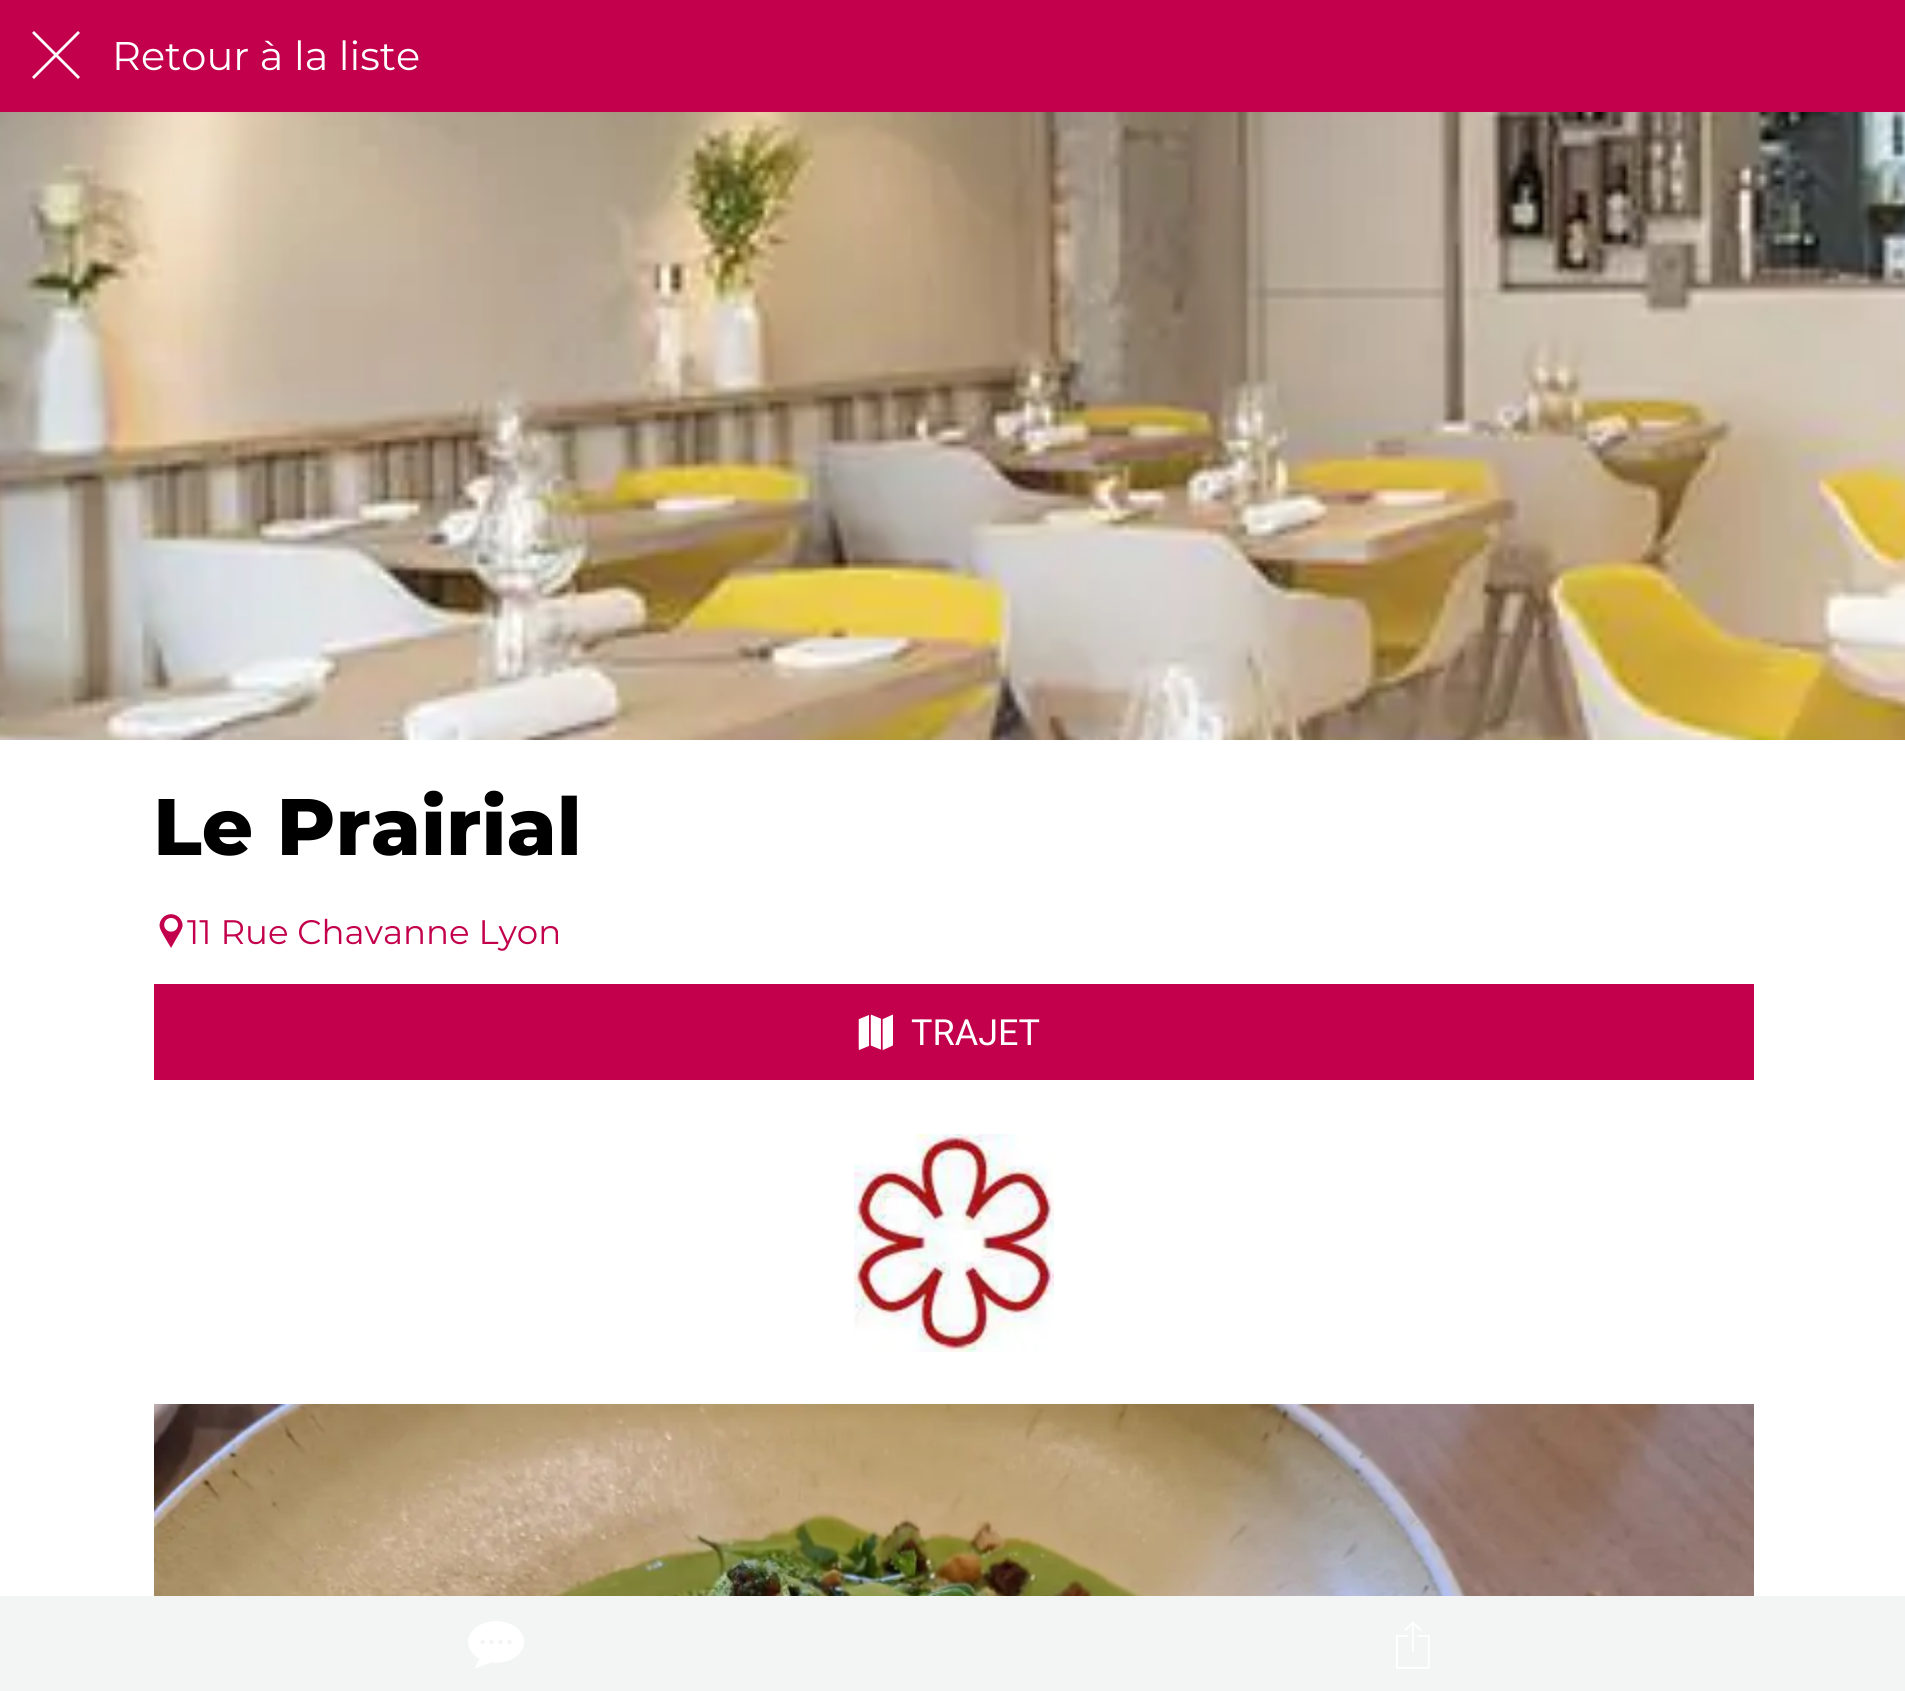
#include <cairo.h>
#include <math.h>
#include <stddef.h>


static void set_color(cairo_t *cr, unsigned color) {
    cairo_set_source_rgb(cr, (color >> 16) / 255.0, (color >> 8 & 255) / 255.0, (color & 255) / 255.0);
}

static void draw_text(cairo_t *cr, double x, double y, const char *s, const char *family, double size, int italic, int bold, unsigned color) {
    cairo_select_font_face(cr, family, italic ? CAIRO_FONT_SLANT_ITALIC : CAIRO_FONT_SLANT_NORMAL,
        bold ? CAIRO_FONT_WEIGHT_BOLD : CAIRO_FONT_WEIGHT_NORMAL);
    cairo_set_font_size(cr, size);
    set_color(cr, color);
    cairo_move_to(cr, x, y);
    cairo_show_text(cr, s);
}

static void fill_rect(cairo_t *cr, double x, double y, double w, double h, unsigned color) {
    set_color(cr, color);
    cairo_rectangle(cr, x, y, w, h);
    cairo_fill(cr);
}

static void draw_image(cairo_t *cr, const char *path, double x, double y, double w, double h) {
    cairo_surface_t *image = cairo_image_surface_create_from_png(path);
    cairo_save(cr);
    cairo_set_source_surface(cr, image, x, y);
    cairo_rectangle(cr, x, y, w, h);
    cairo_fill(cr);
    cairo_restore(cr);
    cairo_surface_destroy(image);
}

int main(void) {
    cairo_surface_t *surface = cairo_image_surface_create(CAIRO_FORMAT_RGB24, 1905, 1691);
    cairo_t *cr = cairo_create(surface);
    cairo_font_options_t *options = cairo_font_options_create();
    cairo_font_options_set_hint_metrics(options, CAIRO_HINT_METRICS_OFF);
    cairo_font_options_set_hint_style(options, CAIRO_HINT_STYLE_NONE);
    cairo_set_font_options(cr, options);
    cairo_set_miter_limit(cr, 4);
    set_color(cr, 0xFFFFFF);
    cairo_paint(cr);
    fill_rect(cr, 0, 0, 1905, 112, 0xC3004B);
    set_color(cr, 0xFFFFFF);
    cairo_new_path(cr);
    cairo_move_to(cr, 80, 33);
    cairo_line_to(cr, 78, 31);
    cairo_line_to(cr, 56, 53);
    cairo_line_to(cr, 34, 31);
    cairo_line_to(cr, 32, 33);
    cairo_line_to(cr, 54, 55);
    cairo_line_to(cr, 32, 77);
    cairo_line_to(cr, 34, 79);
    cairo_line_to(cr, 56, 57);
    cairo_line_to(cr, 78, 79);
    cairo_line_to(cr, 80, 77);
    cairo_line_to(cr, 58, 55);
    cairo_close_path(cr);
    cairo_fill(cr);
    draw_text(cr, 112, 70, "Retour à la liste", "Montserrat", 40, 0, 0, 0xFFFFFF);
    draw_image(cr, "assets/img1.png", 0, 112, 1905, 628);
    draw_text(cr, 153, 855, "Le Prairial", "Montserrat ExtraBold", 80, 0, 0, 0x000000);
    draw_image(cr, "assets/img2.png", 159, 914, 24, 34);
    draw_text(cr, 187, 944, "11 Rue Chavanne Lyon", "Montserrat", 34, 0, 0, 0xC3004B);
    fill_rect(cr, 154, 984, 1600, 96, 0xC3004B);
    draw_image(cr, "assets/img3.png", 858, 1014, 35, 36);
    draw_text(cr, 911, 1045, "TRAJET", "Roboto", 36, 0, 0, 0xFFFFFF);
    draw_image(cr, "assets/img4.png", 854, 1134, 200, 218);
    draw_image(cr, "assets/img5.png", 154, 1404, 1600, 192);
    fill_rect(cr, 0, 1596, 1905, 95, 0xF3F4F4);
    draw_image(cr, "assets/img6.png", 468, 1621, 56, 48);
    draw_image(cr, "assets/img7.png", 1396, 1621, 34, 48);
    cairo_surface_write_to_png(surface, "output.png");
    cairo_font_options_destroy(options);
    cairo_destroy(cr);
    cairo_surface_destroy(surface);
    return 0;
}
